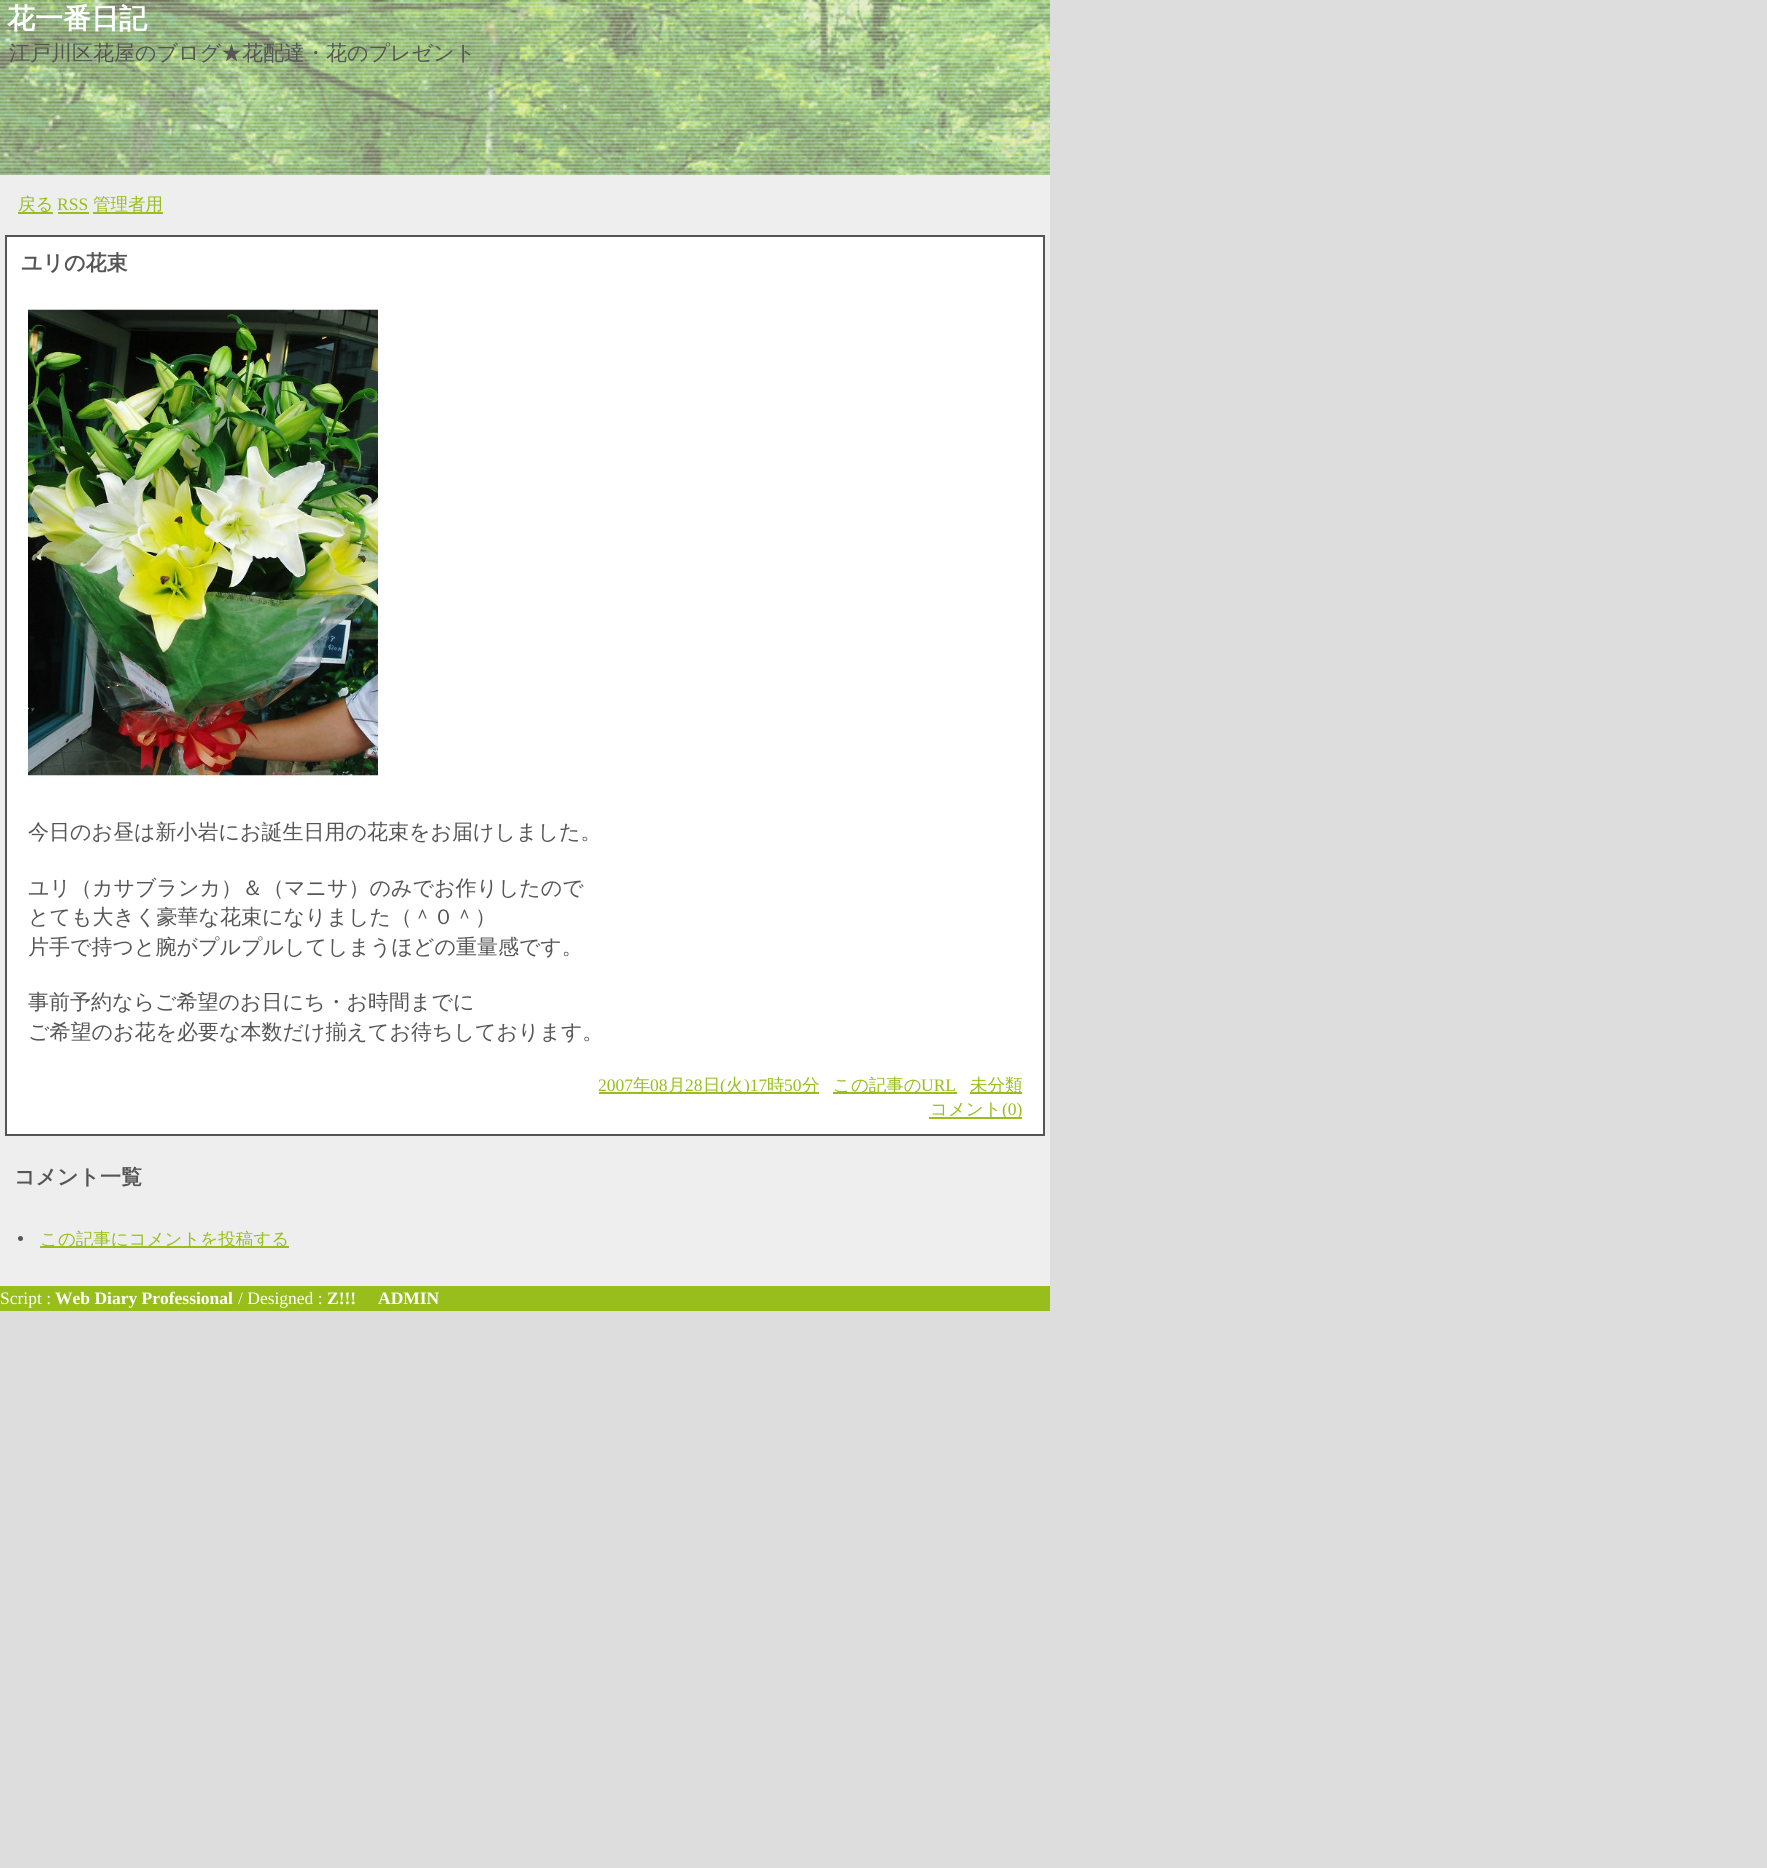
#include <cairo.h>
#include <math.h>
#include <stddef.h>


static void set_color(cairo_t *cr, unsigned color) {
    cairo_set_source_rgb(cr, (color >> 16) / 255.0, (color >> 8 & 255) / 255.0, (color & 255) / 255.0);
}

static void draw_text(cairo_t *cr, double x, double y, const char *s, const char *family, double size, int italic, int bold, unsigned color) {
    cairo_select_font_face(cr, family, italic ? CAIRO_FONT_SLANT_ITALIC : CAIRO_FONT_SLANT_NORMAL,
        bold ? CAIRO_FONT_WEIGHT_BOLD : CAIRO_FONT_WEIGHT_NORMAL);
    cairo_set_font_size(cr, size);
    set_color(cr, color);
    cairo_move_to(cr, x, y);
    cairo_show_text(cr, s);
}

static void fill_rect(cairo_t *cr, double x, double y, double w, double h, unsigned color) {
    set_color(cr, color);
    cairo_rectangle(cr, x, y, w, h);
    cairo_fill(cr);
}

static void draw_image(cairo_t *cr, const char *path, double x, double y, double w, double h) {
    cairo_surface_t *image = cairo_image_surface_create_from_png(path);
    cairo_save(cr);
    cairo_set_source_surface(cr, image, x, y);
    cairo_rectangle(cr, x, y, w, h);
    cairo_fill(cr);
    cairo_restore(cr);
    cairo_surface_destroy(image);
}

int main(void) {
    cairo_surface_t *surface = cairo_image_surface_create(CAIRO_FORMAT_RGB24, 1767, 1868);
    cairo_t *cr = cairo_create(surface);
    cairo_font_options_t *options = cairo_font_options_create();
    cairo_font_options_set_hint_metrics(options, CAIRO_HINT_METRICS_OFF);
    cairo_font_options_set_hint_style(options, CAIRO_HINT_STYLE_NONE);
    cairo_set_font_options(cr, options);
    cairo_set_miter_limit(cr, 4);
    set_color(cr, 0xDDDDDD);
    cairo_paint(cr);
    fill_rect(cr, 0, 175, 1050, 1111, 0xEEEEEE);
    draw_image(cr, "assets/img1.png", 0, 0, 1050, 175);
    draw_text(cr, 7, 28, "花一番日記", "WenQuanYi Zen Hei", 28, 0, 1, 0xFFFFFF);
    draw_text(cr, 9, 60, "江戸川区花屋のブログ★花配達・花のプレゼント", "WenQuanYi Zen Hei Medium", 21, 0, 0, 0x555555);
    fill_rect(cr, 18, 212, 35, 2, 0x97BE1C);
    draw_text(cr, 18, 210, "戻る", "WenQuanYi Zen Hei Medium", 17.5, 0, 0, 0x97BE1C);
    draw_text(cr, 57, 210, "RSS", "Liberation Serif", 17.5, 0, 0, 0x97BE1C);
    fill_rect(cr, 58, 212, 31, 2, 0x97BE1C);
    fill_rect(cr, 93, 212, 70, 2, 0x97BE1C);
    draw_text(cr, 93, 210, "管理者用", "WenQuanYi Zen Hei Medium", 17.5, 0, 0, 0x97BE1C);
    set_color(cr, 0xFFFFFF);
    cairo_rectangle(cr, 6, 236, 1038, 899);
    cairo_fill_preserve(cr);
    set_color(cr, 0x555555);
    cairo_stroke(cr);
    draw_text(cr, 21, 270, "ユリの花束", "WenQuanYi Zen Hei", 21, 0, 1, 0x555555);
    draw_image(cr, "assets/img2.png", 28, 309, 350, 467);
    draw_text(cr, 28, 839, "今日のお昼は新小岩にお誕生日用の花束をお届けしました。", "WenQuanYi Zen Hei Medium", 21, 0, 0, 0x555555);
    draw_text(cr, 28, 895, "ユリ（カサブランカ）＆（マニサ）のみでお作りしたので", "WenQuanYi Zen Hei Medium", 21, 0, 0, 0x555555);
    draw_text(cr, 28, 924, "とても大きく豪華な花束になりました（＾０＾）", "WenQuanYi Zen Hei Medium", 21, 0, 0, 0x555555);
    draw_text(cr, 28, 954, "片手で持つと腕がプルプルしてしまうほどの重量感です。", "WenQuanYi Zen Hei Medium", 21, 0, 0, 0x555555);
    draw_text(cr, 28, 1009, "事前予約ならご希望のお日にち・お時間までに", "WenQuanYi Zen Hei Medium", 21, 0, 0, 0x555555);
    draw_text(cr, 28, 1039, "ご希望のお花を必要な本数だけ揃えてお待ちしております。", "WenQuanYi Zen Hei Medium", 21, 0, 0, 0x555555);
    draw_text(cr, 598, 1091, "2007", "Liberation Serif", 17.5, 0, 0, 0x97BE1C);
    fill_rect(cr, 599, 1092, 220, 2, 0x97BE1C);
    draw_text(cr, 633, 1091, "年", "WenQuanYi Zen Hei Medium", 17.5, 0, 0, 0x97BE1C);
    draw_text(cr, 650, 1091, "08", "Liberation Serif", 17.5, 0, 0, 0x97BE1C);
    draw_text(cr, 668, 1091, "月", "WenQuanYi Zen Hei Medium", 17.5, 0, 0, 0x97BE1C);
    draw_text(cr, 685, 1091, "28", "Liberation Serif", 17.5, 0, 0, 0x97BE1C);
    draw_text(cr, 703, 1091, "日", "WenQuanYi Zen Hei Medium", 17.5, 0, 0, 0x97BE1C);
    draw_text(cr, 720, 1091, "(", "Liberation Serif", 17.5, 0, 0, 0x97BE1C);
    draw_text(cr, 726, 1091, "火", "WenQuanYi Zen Hei Medium", 17.5, 0, 0, 0x97BE1C);
    draw_text(cr, 744, 1091, ")17", "Liberation Serif", 17.5, 0, 0, 0x97BE1C);
    draw_text(cr, 767, 1091, "時", "WenQuanYi Zen Hei Medium", 17.5, 0, 0, 0x97BE1C);
    draw_text(cr, 784, 1091, "50", "Liberation Serif", 17.5, 0, 0, 0x97BE1C);
    draw_text(cr, 802, 1091, "分", "WenQuanYi Zen Hei Medium", 17.5, 0, 0, 0x97BE1C);
    fill_rect(cr, 833, 1092, 124, 2, 0x97BE1C);
    draw_text(cr, 833, 1091, "この記事の", "WenQuanYi Zen Hei Medium", 17.5, 0, 0, 0x97BE1C);
    draw_text(cr, 921, 1091, "URL", "Liberation Serif", 17.5, 0, 0, 0x97BE1C);
    fill_rect(cr, 970, 1092, 52, 2, 0x97BE1C);
    draw_text(cr, 970, 1091, "未分類", "WenQuanYi Zen Hei Medium", 17.5, 0, 0, 0x97BE1C);
    fill_rect(cr, 929, 1117, 93, 2, 0x97BE1C);
    draw_text(cr, 930, 1115, "コメント", "WenQuanYi Zen Hei Medium", 17.5, 0, 0, 0x97BE1C);
    draw_text(cr, 1002, 1115, "(0)", "Liberation Serif", 17.5, 0, 0, 0x97BE1C);
    draw_text(cr, 14, 1184, "コメント一覧", "WenQuanYi Zen Hei", 21, 0, 1, 0x555555);
    cairo_new_path(cr);
    cairo_arc(cr, 20.5, 1238.5, 2.5, 0, 2 * M_PI);
    cairo_fill(cr);
    fill_rect(cr, 40, 1246, 249, 2, 0x97BE1C);
    draw_text(cr, 40, 1245, "この記事にコメントを投稿する", "WenQuanYi Zen Hei Medium", 17.5, 0, 0, 0x97BE1C);
    fill_rect(cr, 0, 1286, 1050, 25, 0x97BE1C);
    draw_text(cr, 0, 1304, "Script :", "Liberation Serif", 17.5, 0, 0, 0xFFFFFF);
    draw_text(cr, 55, 1304, "Web Diary Professional", "Liberation Serif", 17.5, 0, 1, 0xFFFFFF);
    draw_text(cr, 238, 1304, "/ Designed :", "Liberation Serif", 17.5, 0, 0, 0xFFFFFF);
    draw_text(cr, 327, 1304, "Z!!!", "Liberation Serif", 17.5, 0, 1, 0xFFFFFF);
    draw_text(cr, 378, 1304, "ADMIN", "Liberation Serif", 17.5, 0, 1, 0xFFFFFF);
    cairo_surface_write_to_png(surface, "output.png");
    cairo_font_options_destroy(options);
    cairo_destroy(cr);
    cairo_surface_destroy(surface);
    return 0;
}
